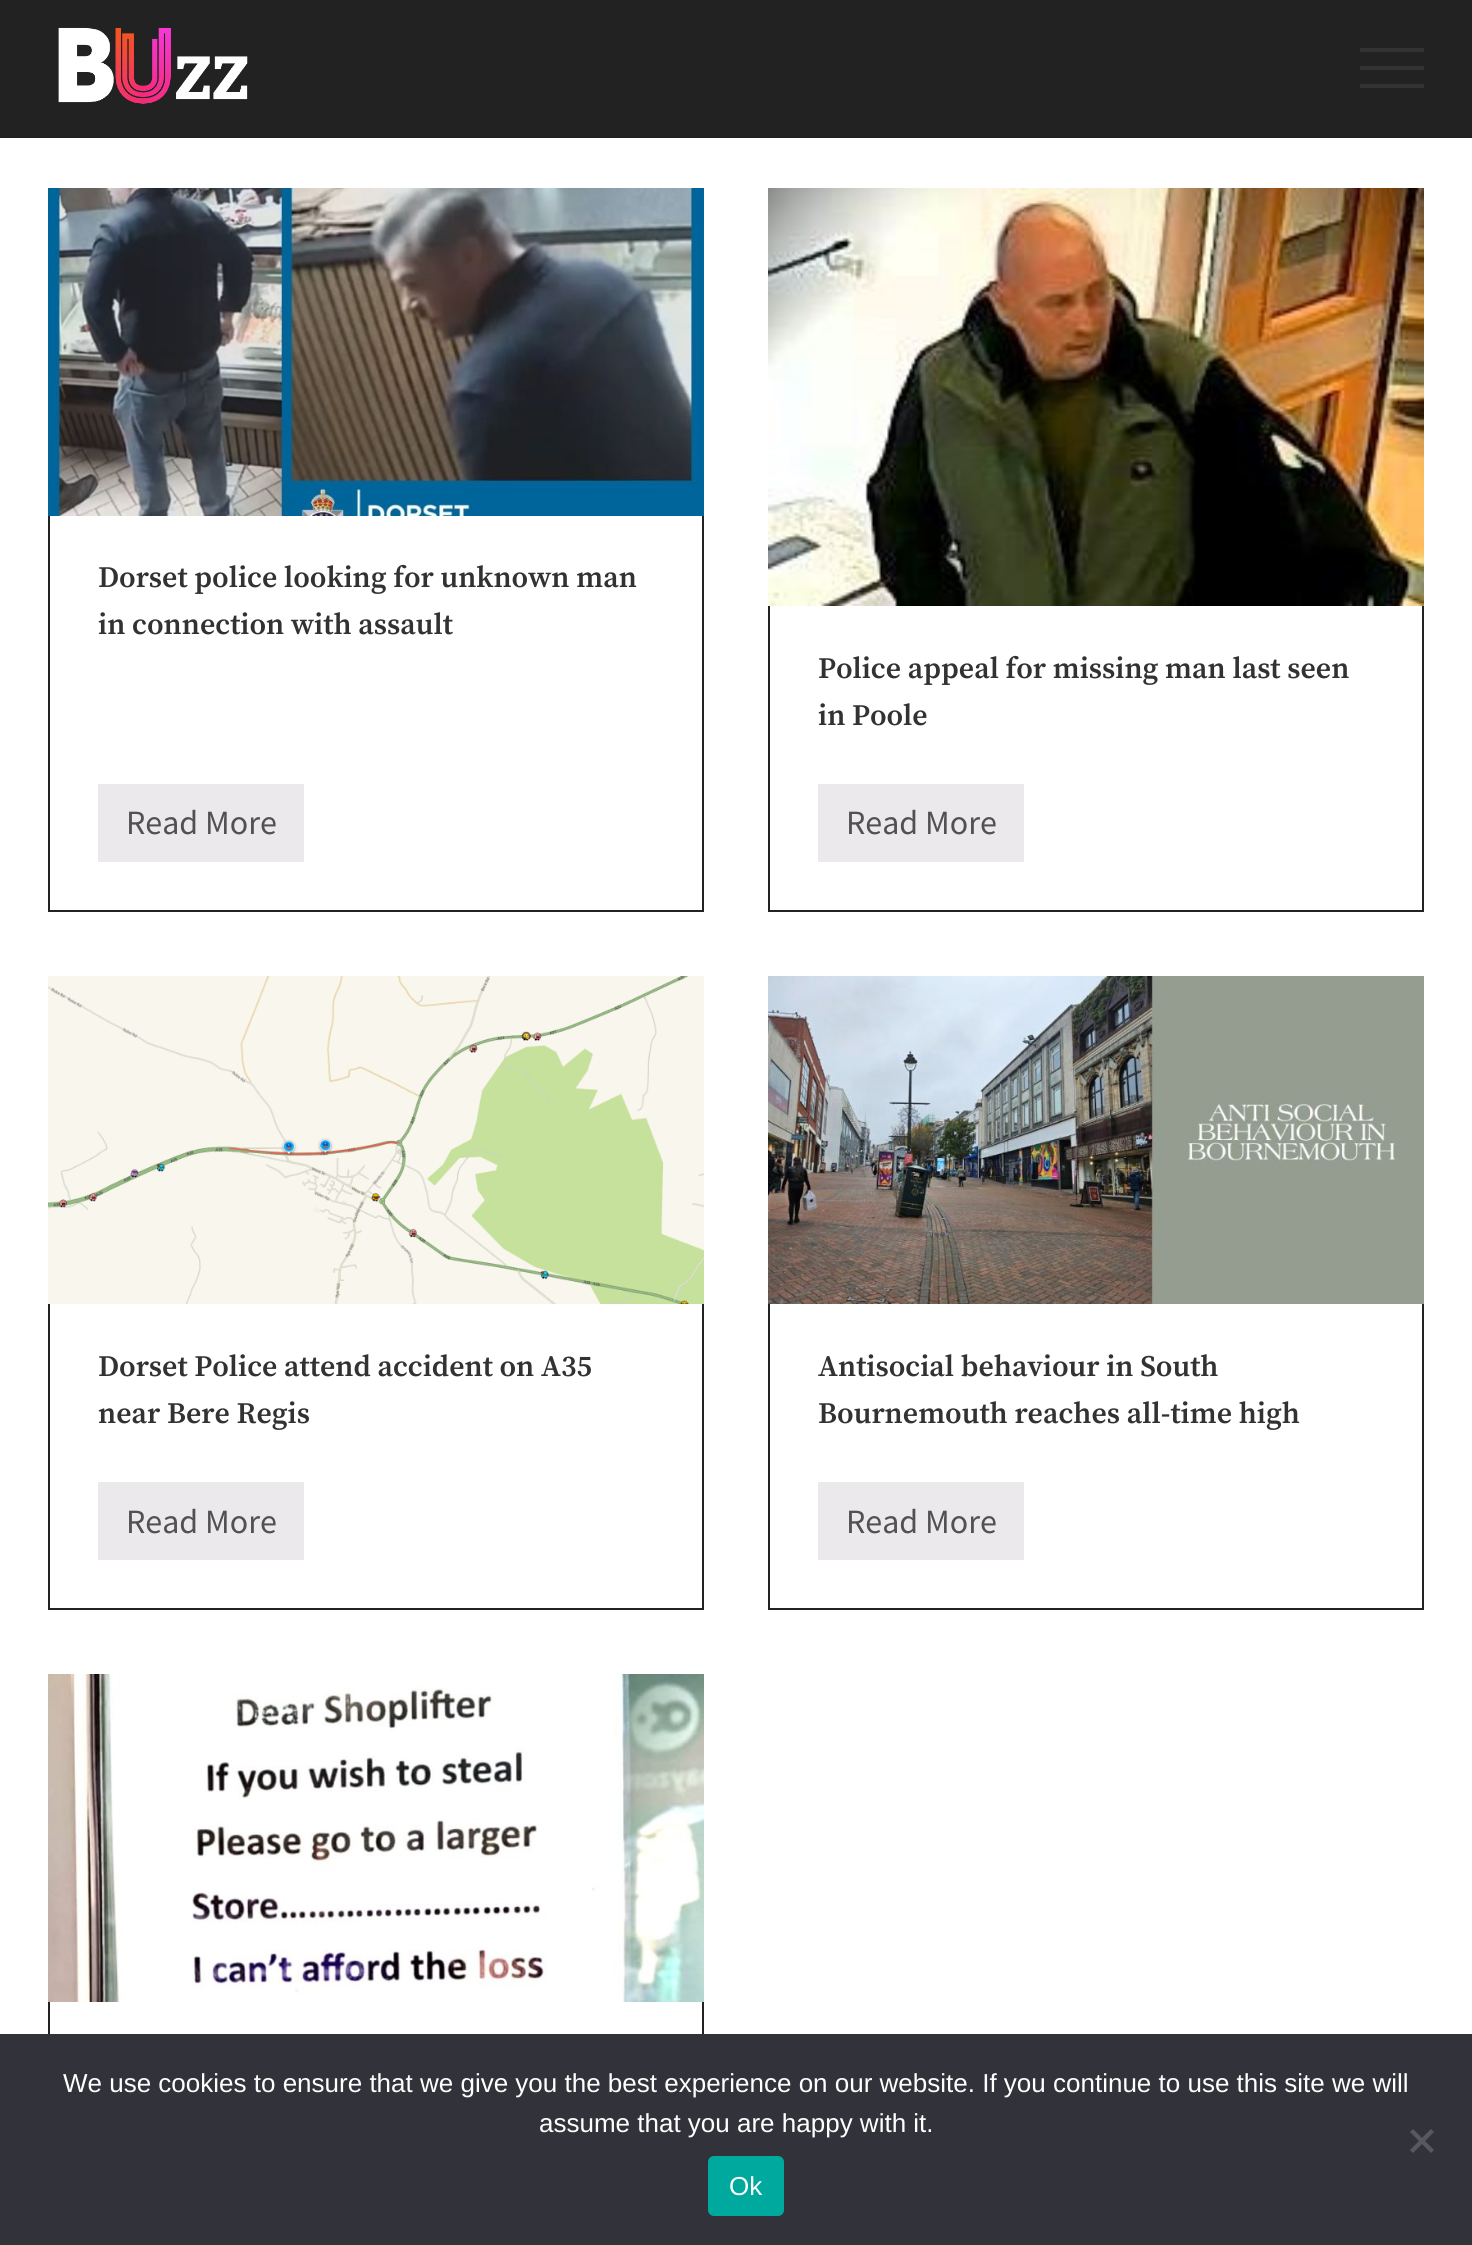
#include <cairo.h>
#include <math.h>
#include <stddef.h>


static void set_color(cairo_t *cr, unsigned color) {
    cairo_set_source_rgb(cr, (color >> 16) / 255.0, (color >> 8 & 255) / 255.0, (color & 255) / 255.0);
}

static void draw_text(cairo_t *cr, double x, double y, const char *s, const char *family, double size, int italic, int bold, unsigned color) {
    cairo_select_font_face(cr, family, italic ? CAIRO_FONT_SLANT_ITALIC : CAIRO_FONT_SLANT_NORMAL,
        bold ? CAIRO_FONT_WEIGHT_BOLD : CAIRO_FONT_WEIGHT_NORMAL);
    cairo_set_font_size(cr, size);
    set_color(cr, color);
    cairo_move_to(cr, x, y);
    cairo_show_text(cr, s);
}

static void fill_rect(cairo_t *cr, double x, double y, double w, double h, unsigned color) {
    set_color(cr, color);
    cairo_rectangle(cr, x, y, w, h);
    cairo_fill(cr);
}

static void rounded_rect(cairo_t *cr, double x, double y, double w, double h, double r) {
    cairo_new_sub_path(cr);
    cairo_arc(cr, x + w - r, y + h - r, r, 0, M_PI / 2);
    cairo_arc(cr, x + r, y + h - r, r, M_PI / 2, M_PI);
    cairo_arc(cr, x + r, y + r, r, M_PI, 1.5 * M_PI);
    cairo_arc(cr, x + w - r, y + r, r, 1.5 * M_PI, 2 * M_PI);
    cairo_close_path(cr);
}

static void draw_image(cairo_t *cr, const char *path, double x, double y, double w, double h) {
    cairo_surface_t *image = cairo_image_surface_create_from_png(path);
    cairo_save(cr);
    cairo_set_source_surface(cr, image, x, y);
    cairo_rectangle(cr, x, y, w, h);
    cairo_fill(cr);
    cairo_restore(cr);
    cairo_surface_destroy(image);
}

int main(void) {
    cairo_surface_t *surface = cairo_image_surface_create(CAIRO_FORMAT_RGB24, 1472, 2245);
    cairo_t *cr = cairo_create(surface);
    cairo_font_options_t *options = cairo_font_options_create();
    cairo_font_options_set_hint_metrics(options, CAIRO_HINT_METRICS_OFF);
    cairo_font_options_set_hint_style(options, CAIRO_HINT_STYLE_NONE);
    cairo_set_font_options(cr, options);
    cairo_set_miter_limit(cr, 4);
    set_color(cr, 0xFFFFFF);
    cairo_paint(cr);
    fill_rect(cr, 0, 0, 1472, 136, 0x222222);
    fill_rect(cr, 0, 136, 1472, 2, 0x202020);
    draw_image(cr, "assets/img1.png", 58, 27, 190, 77);
    fill_rect(cr, 1360, 66, 64, 4, 0x323232);
    fill_rect(cr, 1360, 48, 64, 4, 0x323232);
    fill_rect(cr, 1360, 84, 64, 4, 0x323232);
    cairo_rectangle(cr, 49, 189, 654, 722);
    set_color(cr, 0x222222);
    cairo_stroke(cr);
    draw_image(cr, "assets/img2.png", 48, 188, 656, 328);
    draw_text(cr, 98, 587, "Dorset police looking for unknown man", "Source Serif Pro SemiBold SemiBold", 29.8, 0, 0, 0x323232);
    draw_text(cr, 98, 634, "in connection with assault", "Source Serif Pro SemiBold SemiBold", 29.8, 0, 0, 0x323232);
    fill_rect(cr, 98, 784, 206, 78, 0xEBE9EB);
    draw_text(cr, 126, 834, "Read More", "Source Sans Pro", 34, 0, 0, 0x515151);
    cairo_rectangle(cr, 769, 189, 654, 722);
    set_color(cr, 0x222222);
    cairo_stroke(cr);
    draw_image(cr, "assets/img3.png", 768, 188, 656, 418);
    draw_text(cr, 818, 678, "Police appeal for missing man last seen", "Source Serif Pro SemiBold SemiBold", 29.8, 0, 0, 0x323232);
    draw_text(cr, 818, 725, "in Poole", "Source Serif Pro SemiBold SemiBold", 29.8, 0, 0, 0x323232);
    fill_rect(cr, 818, 784, 206, 78, 0xEBE9EB);
    draw_text(cr, 846, 834, "Read More", "Source Sans Pro", 34, 0, 0, 0x515151);
    cairo_rectangle(cr, 49, 977, 654, 632);
    set_color(cr, 0x222222);
    cairo_stroke(cr);
    draw_image(cr, "assets/img4.png", 48, 976, 656, 328);
    draw_text(cr, 98, 1376, "Dorset Police attend accident on A35", "Source Serif Pro SemiBold SemiBold", 29.8, 0, 0, 0x323232);
    draw_text(cr, 98, 1423, "near Bere Regis", "Source Serif Pro SemiBold SemiBold", 29.8, 0, 0, 0x323232);
    fill_rect(cr, 98, 1482, 206, 78, 0xEBE9EB);
    draw_text(cr, 126, 1533, "Read More", "Source Sans Pro", 34, 0, 0, 0x515151);
    cairo_rectangle(cr, 769, 977, 654, 632);
    set_color(cr, 0x222222);
    cairo_stroke(cr);
    draw_image(cr, "assets/img5.png", 768, 976, 656, 328);
    draw_text(cr, 818, 1376, "Antisocial behaviour in South", "Source Serif Pro SemiBold SemiBold", 29.8, 0, 0, 0x323232);
    draw_text(cr, 818, 1423, "Bournemouth reaches all-time high", "Source Serif Pro SemiBold SemiBold", 29.8, 0, 0, 0x323232);
    fill_rect(cr, 818, 1482, 206, 78, 0xEBE9EB);
    draw_text(cr, 846, 1533, "Read More", "Source Sans Pro", 34, 0, 0, 0x515151);
    cairo_rectangle(cr, 49, 1675, 654, 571);
    set_color(cr, 0x222222);
    cairo_stroke(cr);
    draw_image(cr, "assets/img6.png", 48, 1674, 656, 328);
    fill_rect(cr, 0, 2034, 1472, 211, 0x32323A);
    draw_text(cr, 63, 2092, "We use cookies to ensure that we give you the best experience on our website. If you continue to use this site we will", "Liberation Sans", 26, 0, 0, 0xFFFFFF);
    draw_text(cr, 539, 2132, "assume that you are happy with it.", "Liberation Sans", 26, 0, 0, 0xFFFFFF);
    set_color(cr, 0x59595D);
    cairo_new_path(cr);
    cairo_move_to(cr, 1431, 2129);
    cairo_line_to(cr, 1434, 2132);
    cairo_line_to(cr, 1413, 2153);
    cairo_line_to(cr, 1410, 2150);
    cairo_close_path(cr);
    cairo_fill(cr);
    cairo_new_path(cr);
    cairo_move_to(cr, 1410, 2132);
    cairo_line_to(cr, 1413, 2129);
    cairo_line_to(cr, 1434, 2150);
    cairo_line_to(cr, 1431, 2153);
    cairo_close_path(cr);
    cairo_fill(cr);
    set_color(cr, 0x00A99D);
    rounded_rect(cr, 708, 2156, 76, 60, 6);
    cairo_fill(cr);
    draw_text(cr, 729, 2195, "Ok", "Liberation Sans", 26, 0, 0, 0xFFFFFF);
    cairo_surface_write_to_png(surface, "output.png");
    cairo_font_options_destroy(options);
    cairo_destroy(cr);
    cairo_surface_destroy(surface);
    return 0;
}
